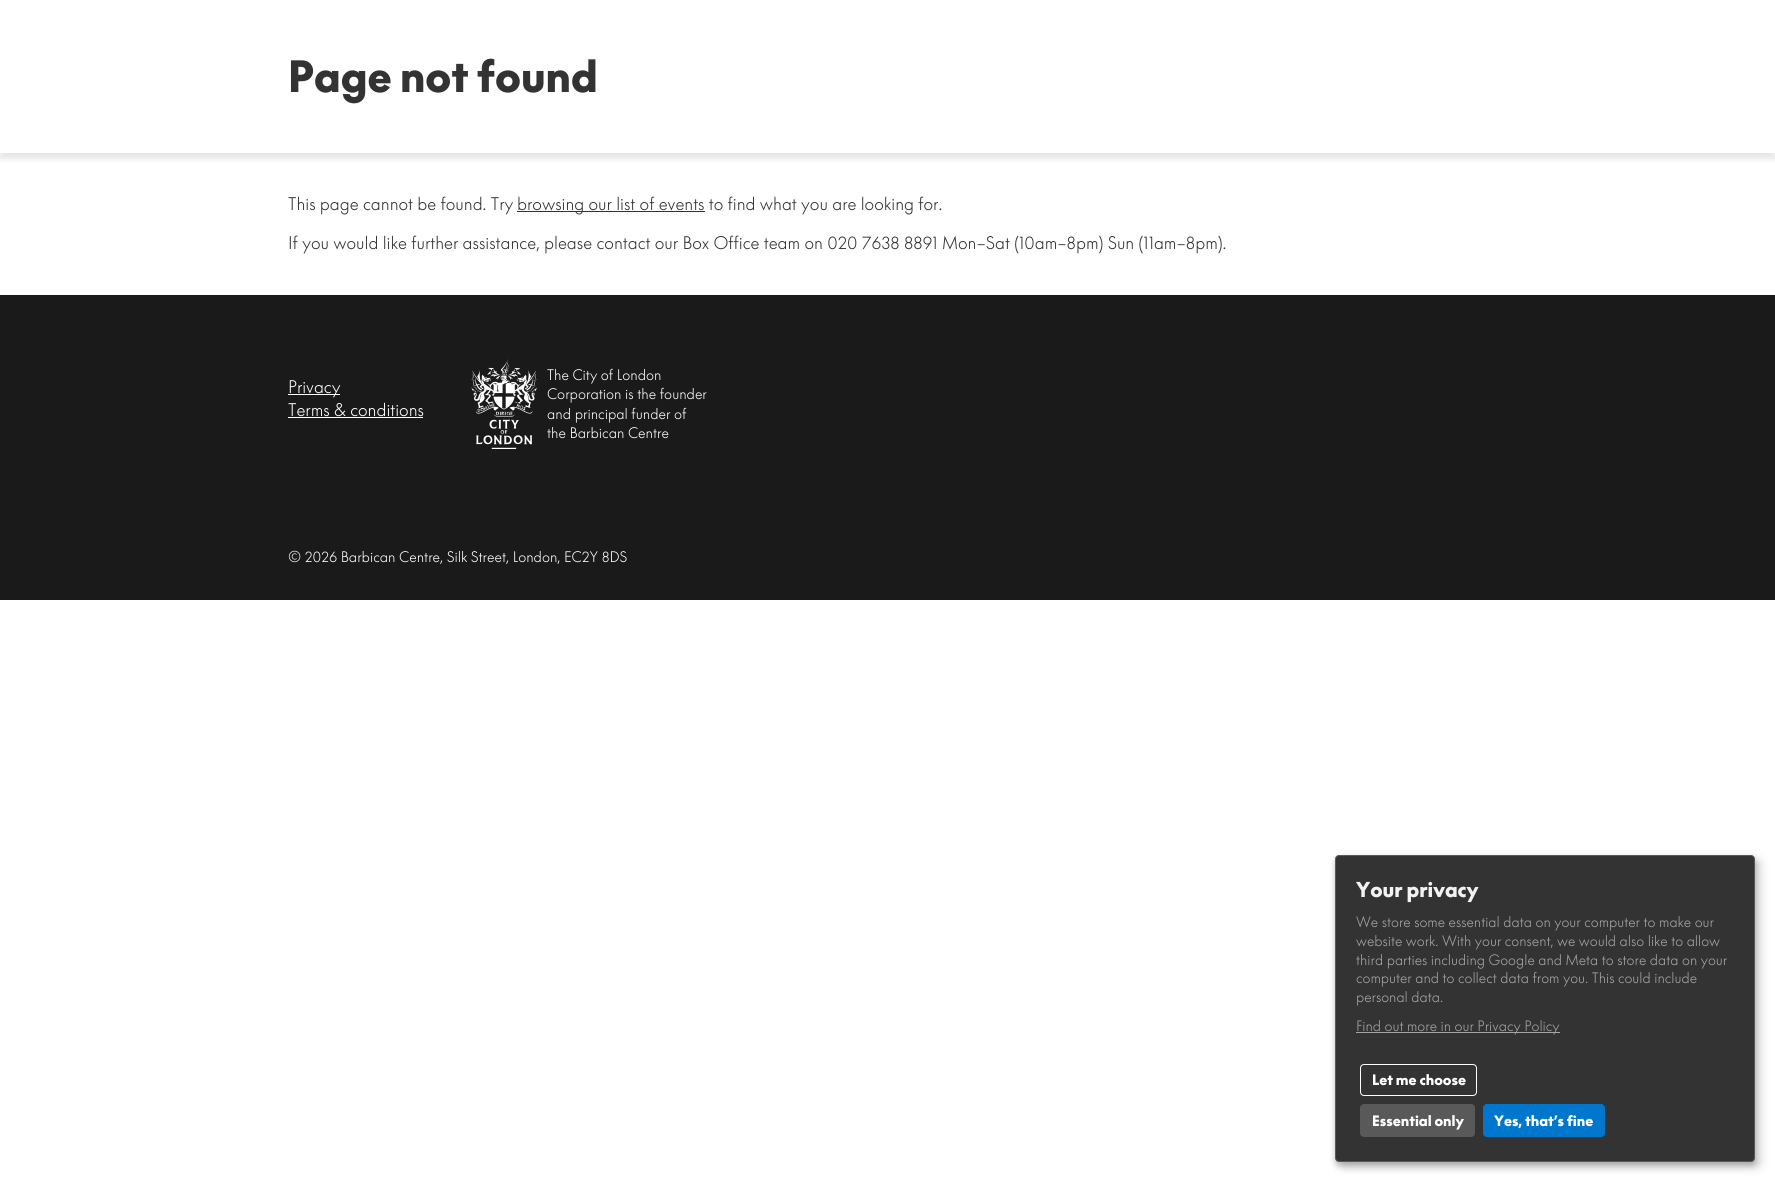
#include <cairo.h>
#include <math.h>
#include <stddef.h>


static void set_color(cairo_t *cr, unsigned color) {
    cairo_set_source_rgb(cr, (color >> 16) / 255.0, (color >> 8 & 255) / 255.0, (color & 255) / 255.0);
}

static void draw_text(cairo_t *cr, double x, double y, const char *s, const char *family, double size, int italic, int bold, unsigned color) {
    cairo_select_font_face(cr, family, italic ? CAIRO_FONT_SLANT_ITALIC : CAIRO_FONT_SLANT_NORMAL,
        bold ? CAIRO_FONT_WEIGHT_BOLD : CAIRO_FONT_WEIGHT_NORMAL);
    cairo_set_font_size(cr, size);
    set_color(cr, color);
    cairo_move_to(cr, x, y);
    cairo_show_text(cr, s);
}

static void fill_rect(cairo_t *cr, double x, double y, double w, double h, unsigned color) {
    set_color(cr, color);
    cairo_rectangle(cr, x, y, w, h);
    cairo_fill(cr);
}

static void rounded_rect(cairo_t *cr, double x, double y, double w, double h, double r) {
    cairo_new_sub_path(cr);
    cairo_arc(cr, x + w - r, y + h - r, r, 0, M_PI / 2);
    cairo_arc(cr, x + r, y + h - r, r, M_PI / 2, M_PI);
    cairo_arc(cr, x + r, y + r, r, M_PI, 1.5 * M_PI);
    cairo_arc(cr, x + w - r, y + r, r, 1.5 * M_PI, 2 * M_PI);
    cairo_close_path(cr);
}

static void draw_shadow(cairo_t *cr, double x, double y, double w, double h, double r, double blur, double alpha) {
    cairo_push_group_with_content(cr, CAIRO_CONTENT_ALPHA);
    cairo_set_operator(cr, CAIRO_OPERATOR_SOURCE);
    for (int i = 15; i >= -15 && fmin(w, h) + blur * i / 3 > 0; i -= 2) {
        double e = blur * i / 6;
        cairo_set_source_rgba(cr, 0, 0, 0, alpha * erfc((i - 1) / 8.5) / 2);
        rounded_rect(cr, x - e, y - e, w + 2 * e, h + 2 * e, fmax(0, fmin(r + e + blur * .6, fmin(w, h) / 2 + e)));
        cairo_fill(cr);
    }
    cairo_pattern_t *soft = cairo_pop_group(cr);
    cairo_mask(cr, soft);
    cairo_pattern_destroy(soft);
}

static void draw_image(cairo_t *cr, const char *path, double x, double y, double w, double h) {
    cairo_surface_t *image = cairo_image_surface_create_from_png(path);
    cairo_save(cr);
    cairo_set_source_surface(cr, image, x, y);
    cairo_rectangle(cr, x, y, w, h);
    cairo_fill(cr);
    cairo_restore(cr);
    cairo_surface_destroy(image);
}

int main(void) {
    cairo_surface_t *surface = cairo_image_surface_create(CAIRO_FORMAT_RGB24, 1775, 1182);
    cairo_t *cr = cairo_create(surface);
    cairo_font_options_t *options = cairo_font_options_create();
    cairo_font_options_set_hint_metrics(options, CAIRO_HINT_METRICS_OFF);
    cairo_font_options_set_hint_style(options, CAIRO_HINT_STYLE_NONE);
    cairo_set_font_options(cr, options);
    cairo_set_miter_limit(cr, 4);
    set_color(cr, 0xFFFFFF);
    cairo_paint(cr);
    cairo_save(cr);
    cairo_rectangle(cr, 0, 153, 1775, 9);
    cairo_clip(cr);
    set_color(cr, 0x000000);
    draw_shadow(cr, 0, 6, 1775, 153, 0, 3, 0.1);
    cairo_restore(cr);
    draw_text(cr, 288, 92, "Page not found", "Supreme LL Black", 42, 0, 0, 0x333333);
    draw_text(cr, 288, 210, "This page cannot be found. Try", "Supreme LL Light", 17, 0, 0, 0x333333);
    fill_rect(cr, 517, 211, 188, 1, 0x333333);
    draw_text(cr, 517, 210, "browsing our list of events to find what you are looking for.", "Supreme LL Light", 17, 0, 0, 0x333333);
    draw_text(cr, 288, 249, "If you would like further assistance, please contact our Box Office team on 020 7638 8891 Mon–Sat (10am–8pm) Sun (11am–8pm).", "Supreme LL Light", 17, 0, 0, 0x333333);
    fill_rect(cr, 0, 295, 1775, 305, 0x1A1A1A);
    fill_rect(cr, 288, 394, 52, 1, 0xFFFFFF);
    draw_text(cr, 288, 393, "Privacy", "Supreme LL Light", 17, 0, 0, 0xFFFFFF);
    draw_text(cr, 288, 416, "Terms & conditions", "Supreme LL Light", 17, 0, 0, 0xFFFFFF);
    fill_rect(cr, 288, 417, 135, 1, 0xFFFFFF);
    draw_image(cr, "assets/img1.png", 471, 359, 66, 90);
    draw_text(cr, 547, 380, "The City of London", "Supreme LL Light", 14.2, 0, 0, 0xFFFFFF);
    draw_text(cr, 547, 399, "Corporation is the founder", "Supreme LL Light", 14.2, 0, 0, 0xFFFFFF);
    draw_text(cr, 547, 419, "and principal funder of", "Supreme LL Light", 14.2, 0, 0, 0xFFFFFF);
    draw_text(cr, 547, 438, "the Barbican Centre", "Supreme LL Light", 14.2, 0, 0, 0xFFFFFF);
    draw_text(cr, 288, 562, "© 2026 Barbican Centre, Silk Street, London, EC2Y 8DS", "Supreme LL Light", 14.2, 0, 0, 0xFFFFFF);
    set_color(cr, 0x000000);
    draw_shadow(cr, 1340, 860, 420, 307, 4, 5, 0.19);
    draw_shadow(cr, 1335, 859, 420, 307, 4, 3, 0.2);
    set_color(cr, 0x333333);
    rounded_rect(cr, 1335.5, 855.5, 419, 306, 3.5);
    cairo_fill_preserve(cr);
    set_color(cr, 0x595959);
    cairo_set_line_width(cr, 1);
    cairo_stroke(cr);
    draw_text(cr, 1356, 897, "Your privacy", "Supreme LL Black", 20, 0, 0, 0xF2F2F2);
    draw_text(cr, 1356, 927, "We store some essential data on your computer to make our", "Supreme LL Light", 14, 0, 0, 0xA6A6A6);
    draw_text(cr, 1356, 946, "website work. With your consent, we would also like to allow", "Supreme LL Light", 14, 0, 0, 0xA6A6A6);
    draw_text(cr, 1356, 965, "third parties including Google and Meta to store data on your", "Supreme LL Light", 14, 0, 0, 0xA6A6A6);
    draw_text(cr, 1356, 983, "computer and to collect data from you. This could include", "Supreme LL Light", 14, 0, 0, 0xA6A6A6);
    draw_text(cr, 1356, 1002, "personal data.", "Supreme LL Light", 14, 0, 0, 0xA6A6A6);
    fill_rect(cr, 1356, 1032, 204, 1, 0xA6A6A6);
    draw_text(cr, 1356, 1031, "Find out more in our Privacy Policy", "Supreme LL Light", 14, 0, 0, 0xA6A6A6);
    rounded_rect(cr, 1360.5, 1064.5, 116, 31, 3.5);
    set_color(cr, 0xFFFFFF);
    cairo_stroke(cr);
    draw_text(cr, 1372, 1085, "Let me choose", "Supreme LL Black", 14, 0, 0, 0xFFFFFF);
    set_color(cr, 0x595959);
    rounded_rect(cr, 1360.5, 1104.5, 114, 32, 3.5);
    cairo_fill_preserve(cr);
    cairo_stroke(cr);
    draw_text(cr, 1372, 1126, "Essential only", "Supreme LL Black", 14, 0, 0, 0xFFFFFF);
    set_color(cr, 0x0077CC);
    rounded_rect(cr, 1483.5, 1104.5, 121, 32, 3.5);
    cairo_fill_preserve(cr);
    cairo_stroke(cr);
    draw_text(cr, 1494, 1126, "Yes, that’s fine", "Supreme LL Black", 14, 0, 0, 0xFFFFFF);
    cairo_surface_write_to_png(surface, "output.png");
    cairo_font_options_destroy(options);
    cairo_destroy(cr);
    cairo_surface_destroy(surface);
    return 0;
}
